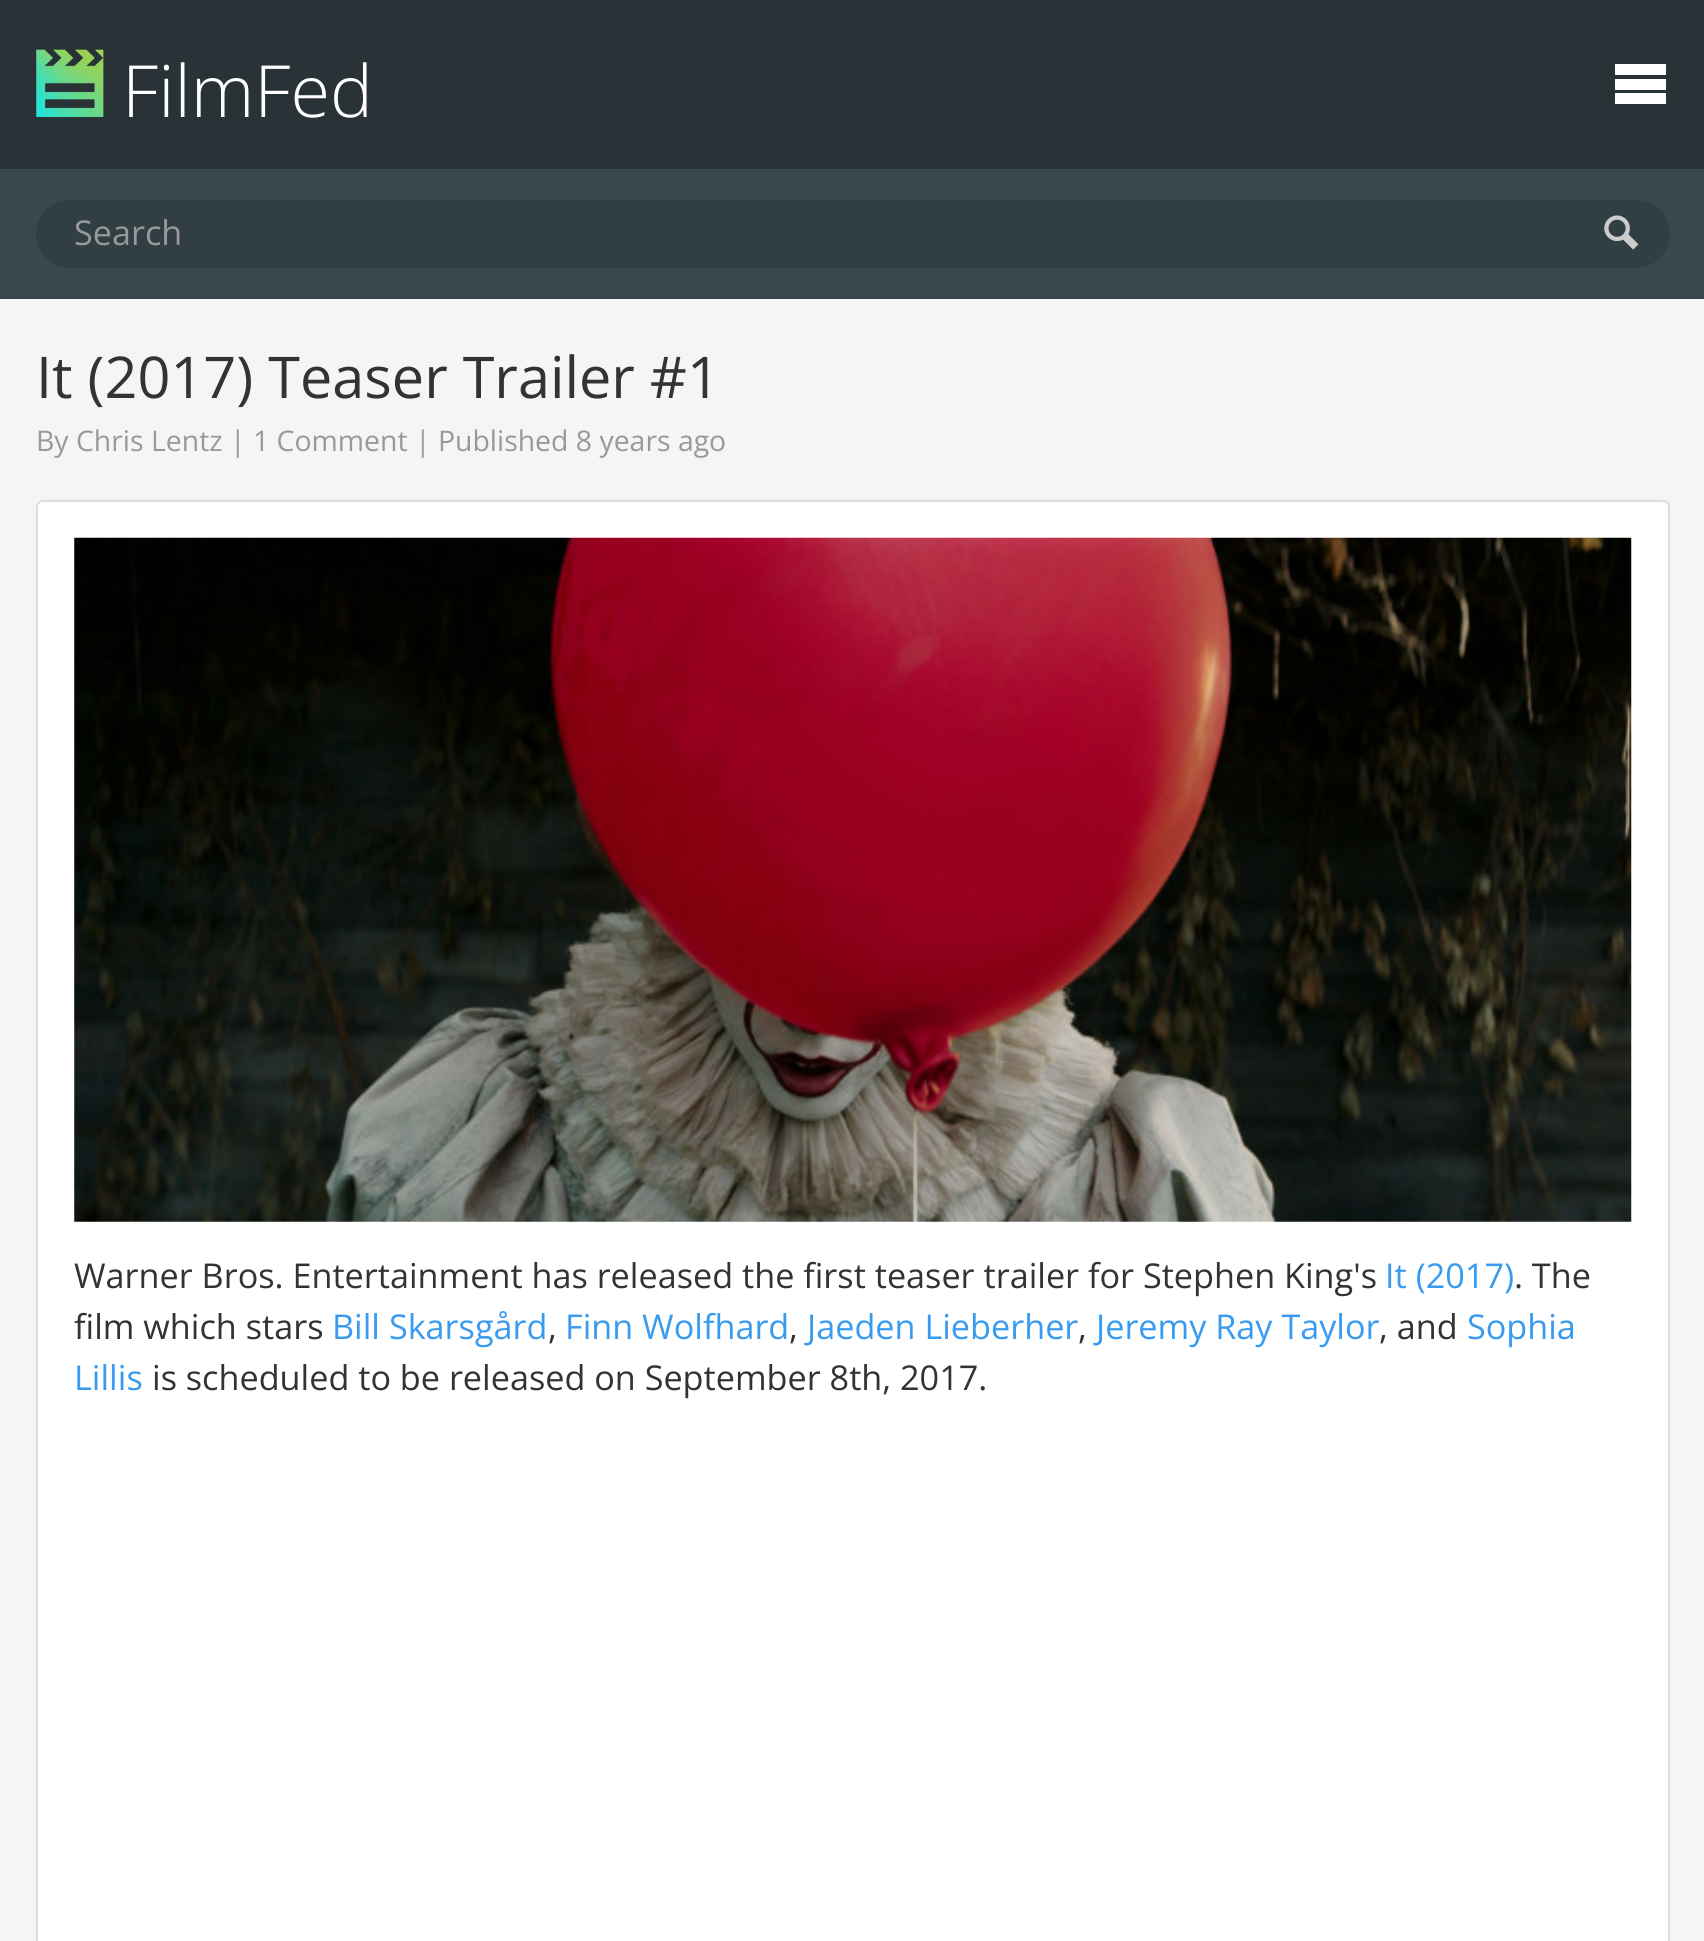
#include <cairo.h>
#include <math.h>
#include <stddef.h>


static void set_color(cairo_t *cr, unsigned color) {
    cairo_set_source_rgb(cr, (color >> 16) / 255.0, (color >> 8 & 255) / 255.0, (color & 255) / 255.0);
}

static void draw_text(cairo_t *cr, double x, double y, const char *s, const char *family, double size, int italic, int bold, unsigned color) {
    cairo_select_font_face(cr, family, italic ? CAIRO_FONT_SLANT_ITALIC : CAIRO_FONT_SLANT_NORMAL,
        bold ? CAIRO_FONT_WEIGHT_BOLD : CAIRO_FONT_WEIGHT_NORMAL);
    cairo_set_font_size(cr, size);
    set_color(cr, color);
    cairo_move_to(cr, x, y);
    cairo_show_text(cr, s);
}

static void fill_rect(cairo_t *cr, double x, double y, double w, double h, unsigned color) {
    set_color(cr, color);
    cairo_rectangle(cr, x, y, w, h);
    cairo_fill(cr);
}

static void rounded_rect(cairo_t *cr, double x, double y, double w, double h, double r) {
    cairo_new_sub_path(cr);
    cairo_arc(cr, x + w - r, y + h - r, r, 0, M_PI / 2);
    cairo_arc(cr, x + r, y + h - r, r, M_PI / 2, M_PI);
    cairo_arc(cr, x + r, y + r, r, M_PI, 1.5 * M_PI);
    cairo_arc(cr, x + w - r, y + r, r, 1.5 * M_PI, 2 * M_PI);
    cairo_close_path(cr);
}

static void draw_image(cairo_t *cr, const char *path, double x, double y, double w, double h) {
    cairo_surface_t *image = cairo_image_surface_create_from_png(path);
    cairo_save(cr);
    cairo_set_source_surface(cr, image, x, y);
    cairo_rectangle(cr, x, y, w, h);
    cairo_fill(cr);
    cairo_restore(cr);
    cairo_surface_destroy(image);
}

int main(void) {
    cairo_surface_t *surface = cairo_image_surface_create(CAIRO_FORMAT_RGB24, 1704, 1941);
    cairo_t *cr = cairo_create(surface);
    cairo_font_options_t *options = cairo_font_options_create();
    cairo_font_options_set_hint_metrics(options, CAIRO_HINT_METRICS_OFF);
    cairo_font_options_set_hint_style(options, CAIRO_HINT_STYLE_NONE);
    cairo_set_font_options(cr, options);
    cairo_set_miter_limit(cr, 4);
    set_color(cr, 0xF5F5F5);
    cairo_paint(cr);
    fill_rect(cr, 0, 0, 1704, 169, 0x283237);
    draw_image(cr, "assets/img1.png", 36, 49, 68, 68);
    draw_text(cr, 122, 117, "FilmFed", "Open Sans Light", 72, 0, 0, 0xFFFFFF);
    cairo_new_path(cr);
    cairo_move_to(cr, 1615, 64);
    cairo_line_to(cr, 1666, 64);
    cairo_line_to(cr, 1666, 75);
    cairo_line_to(cr, 1615, 75);
    cairo_close_path(cr);
    cairo_move_to(cr, 1615, 79);
    cairo_line_to(cr, 1666, 79);
    cairo_line_to(cr, 1666, 90);
    cairo_line_to(cr, 1615, 90);
    cairo_close_path(cr);
    cairo_move_to(cr, 1615, 93);
    cairo_line_to(cr, 1666, 93);
    cairo_line_to(cr, 1666, 104);
    cairo_line_to(cr, 1615, 104);
    cairo_close_path(cr);
    cairo_fill(cr);
    fill_rect(cr, 0, 169, 1704, 130, 0x39474E);
    set_color(cr, 0x313E44);
    rounded_rect(cr, 36, 200, 1634, 68, 34);
    cairo_fill(cr);
    draw_text(cr, 74, 245, "Search", "Open Sans", 34.2, 0, 0, 0x999999);
    draw_image(cr, "assets/img2.png", 1604, 215, 35, 35);
    draw_text(cr, 36, 398, "It (2017) Teaser Trailer #1", "Open Sans", 57.6, 0, 0, 0x333333);
    draw_text(cr, 36, 451, "By Chris Lentz | 1 Comment | Published 8 years ago", "Open Sans", 28.4, 0, 0, 0x999999);
    set_color(cr, 0xFFFFFF);
    rounded_rect(cr, 37, 501, 1632, 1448, 6);
    cairo_fill_preserve(cr);
    set_color(cr, 0xDDDDDD);
    cairo_stroke(cr);
    draw_image(cr, "assets/img3.png", 74, 537, 1558, 685);
    draw_text(cr, 74, 1288, "Warner Bros. Entertainment has released the first teaser trailer for Stephen King's", "Open Sans", 34.2, 0, 0, 0x333333);
    draw_text(cr, 1385, 1288, "It (2017)", "Open Sans", 34.2, 0, 0, 0x399BEF);
    draw_text(cr, 1514, 1288, ". The", "Open Sans", 34.2, 0, 0, 0x333333);
    draw_text(cr, 74, 1339, "film which stars", "Open Sans", 34.2, 0, 0, 0x333333);
    draw_text(cr, 332, 1339, "Bill Skarsgård", "Open Sans", 34.2, 0, 0, 0x399BEF);
    draw_text(cr, 548, 1339, ",", "Open Sans", 34.2, 0, 0, 0x333333);
    draw_text(cr, 565, 1339, "Finn Wolfhard", "Open Sans", 34.2, 0, 0, 0x399BEF);
    draw_text(cr, 789, 1339, ",", "Open Sans", 34.2, 0, 0, 0x333333);
    draw_text(cr, 807, 1339, "Jaeden Lieberher", "Open Sans", 34.2, 0, 0, 0x399BEF);
    draw_text(cr, 1078, 1339, ",", "Open Sans", 34.2, 0, 0, 0x333333);
    draw_text(cr, 1096, 1339, "Jeremy Ray Taylor", "Open Sans", 34.2, 0, 0, 0x399BEF);
    draw_text(cr, 1379, 1339, ", and", "Open Sans", 34.2, 0, 0, 0x333333);
    draw_text(cr, 1467, 1339, "Sophia", "Open Sans", 34.2, 0, 0, 0x399BEF);
    draw_text(cr, 74, 1390, "Lillis", "Open Sans", 34.2, 0, 0, 0x399BEF);
    draw_text(cr, 152, 1390, "is scheduled to be released on September 8th, 2017.", "Open Sans", 34.2, 0, 0, 0x333333);
    cairo_surface_write_to_png(surface, "output.png");
    cairo_font_options_destroy(options);
    cairo_destroy(cr);
    cairo_surface_destroy(surface);
    return 0;
}
